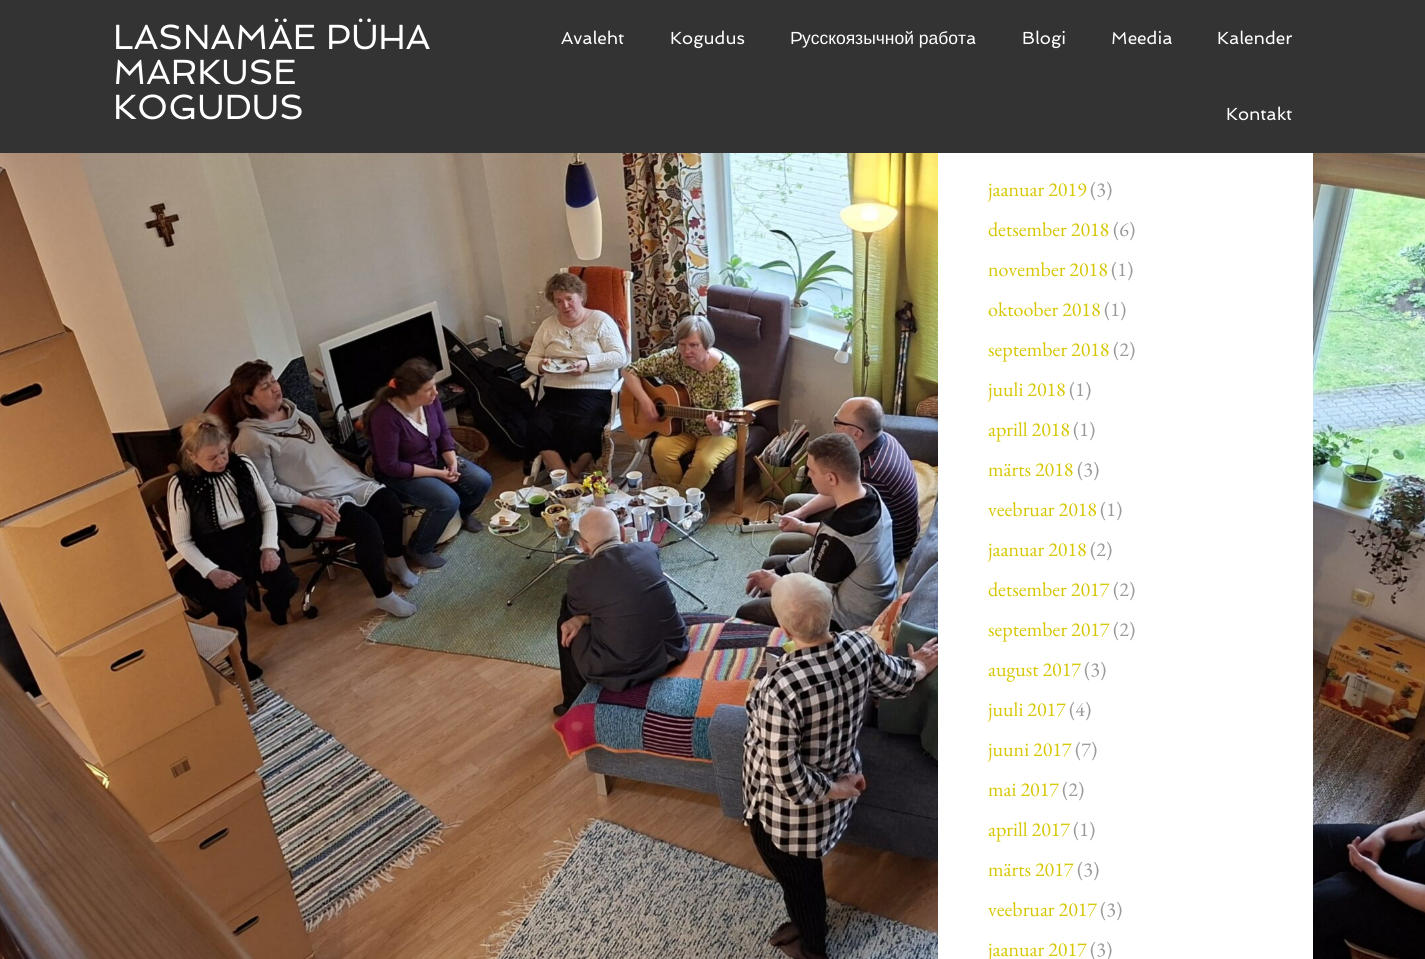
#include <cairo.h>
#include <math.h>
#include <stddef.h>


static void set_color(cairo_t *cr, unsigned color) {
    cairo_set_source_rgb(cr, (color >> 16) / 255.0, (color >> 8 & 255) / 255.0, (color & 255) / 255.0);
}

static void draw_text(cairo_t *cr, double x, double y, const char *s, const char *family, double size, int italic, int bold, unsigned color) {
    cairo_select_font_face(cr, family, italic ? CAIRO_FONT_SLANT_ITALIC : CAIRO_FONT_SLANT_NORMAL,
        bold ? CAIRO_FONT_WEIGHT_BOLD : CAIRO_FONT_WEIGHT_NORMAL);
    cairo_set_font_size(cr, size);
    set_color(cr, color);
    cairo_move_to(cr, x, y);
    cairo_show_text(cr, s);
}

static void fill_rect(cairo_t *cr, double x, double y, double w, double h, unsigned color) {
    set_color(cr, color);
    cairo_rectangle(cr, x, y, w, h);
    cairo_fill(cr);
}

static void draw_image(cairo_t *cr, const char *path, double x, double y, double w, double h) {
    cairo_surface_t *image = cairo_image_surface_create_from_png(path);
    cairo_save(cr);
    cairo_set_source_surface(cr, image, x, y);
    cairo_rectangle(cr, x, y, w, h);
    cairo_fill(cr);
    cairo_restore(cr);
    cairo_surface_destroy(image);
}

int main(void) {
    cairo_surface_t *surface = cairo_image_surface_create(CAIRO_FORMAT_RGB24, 1425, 959);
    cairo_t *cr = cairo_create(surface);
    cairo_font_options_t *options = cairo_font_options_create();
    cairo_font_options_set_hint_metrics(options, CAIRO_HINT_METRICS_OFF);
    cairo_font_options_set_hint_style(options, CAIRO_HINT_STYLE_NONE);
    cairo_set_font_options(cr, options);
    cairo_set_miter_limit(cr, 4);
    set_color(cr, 0xFFFFFF);
    cairo_paint(cr);
    fill_rect(cr, 0, 0, 1425, 153, 0x333333);
    draw_text(cr, 113, 49, "LASNAMÄE PÜHA", "Spinnaker", 35, 0, 0, 0xFFFFFF);
    draw_text(cr, 113, 84, "MARKUSE", "Spinnaker", 35, 0, 0, 0xFFFFFF);
    draw_text(cr, 113, 119, "KOGUDUS", "Spinnaker", 35, 0, 0, 0xFFFFFF);
    draw_text(cr, 561, 44, "Avaleht", "Spinnaker", 17.5, 0, 0, 0xFFFFFF);
    draw_text(cr, 670, 44, "Kogudus", "Spinnaker", 17.5, 0, 0, 0xFFFFFF);
    draw_text(cr, 790, 44, "P", "Spinnaker", 17.5, 0, 0, 0xFFFFFF);
    draw_text(cr, 802, 44, "усскоязычной работ", "Liberation Sans", 17.5, 0, 0, 0xFFFFFF);
    draw_text(cr, 966, 44, "a", "Spinnaker", 17.5, 0, 0, 0xFFFFFF);
    draw_text(cr, 1022, 44, "Blogi", "Spinnaker", 17.5, 0, 0, 0xFFFFFF);
    draw_text(cr, 1111, 44, "Meedia", "Spinnaker", 17.5, 0, 0, 0xFFFFFF);
    draw_text(cr, 1217, 44, "Kalender", "Spinnaker", 17.5, 0, 0, 0xFFFFFF);
    draw_text(cr, 1226, 120, "Kontakt", "Spinnaker", 17.5, 0, 0, 0xFFFFFF);
    draw_image(cr, "assets/img1.png", 0, 153, 1425, 806);
    fill_rect(cr, 938, 153, 375, 806, 0xFFFFFF);
    draw_text(cr, 988, 196, "jaanuar 2019", "EB Garamond", 20, 0, 0, 0xD7C603);
    draw_text(cr, 1090, 196, "(3)", "EB Garamond", 20, 0, 0, 0x999999);
    draw_text(cr, 988, 236, "detsember 2018", "EB Garamond", 20, 0, 0, 0xD7C603);
    draw_text(cr, 1113, 236, "(6)", "EB Garamond", 20, 0, 0, 0x999999);
    draw_text(cr, 988, 276, "november 2018", "EB Garamond", 20, 0, 0, 0xD7C603);
    draw_text(cr, 1111, 276, "(1)", "EB Garamond", 20, 0, 0, 0x999999);
    draw_text(cr, 988, 316, "oktoober 2018", "EB Garamond", 20, 0, 0, 0xD7C603);
    draw_text(cr, 1104, 316, "(1)", "EB Garamond", 20, 0, 0, 0x999999);
    draw_text(cr, 988, 356, "september 2018", "EB Garamond", 20, 0, 0, 0xD7C603);
    draw_text(cr, 1113, 356, "(2)", "EB Garamond", 20, 0, 0, 0x999999);
    draw_text(cr, 988, 396, "juuli 2018", "EB Garamond", 20, 0, 0, 0xD7C603);
    draw_text(cr, 1069, 396, "(1)", "EB Garamond", 20, 0, 0, 0x999999);
    draw_text(cr, 988, 436, "aprill 2018", "EB Garamond", 20, 0, 0, 0xD7C603);
    draw_text(cr, 1073, 436, "(1)", "EB Garamond", 20, 0, 0, 0x999999);
    draw_text(cr, 988, 476, "märts 2018", "EB Garamond", 20, 0, 0, 0xD7C603);
    draw_text(cr, 1077, 476, "(3)", "EB Garamond", 20, 0, 0, 0x999999);
    draw_text(cr, 988, 516, "veebruar 2018", "EB Garamond", 20, 0, 0, 0xD7C603);
    draw_text(cr, 1100, 516, "(1)", "EB Garamond", 20, 0, 0, 0x999999);
    draw_text(cr, 988, 556, "jaanuar 2018", "EB Garamond", 20, 0, 0, 0xD7C603);
    draw_text(cr, 1090, 556, "(2)", "EB Garamond", 20, 0, 0, 0x999999);
    draw_text(cr, 988, 596, "detsember 2017", "EB Garamond", 20, 0, 0, 0xD7C603);
    draw_text(cr, 1113, 596, "(2)", "EB Garamond", 20, 0, 0, 0x999999);
    draw_text(cr, 988, 636, "september 2017", "EB Garamond", 20, 0, 0, 0xD7C603);
    draw_text(cr, 1113, 636, "(2)", "EB Garamond", 20, 0, 0, 0x999999);
    draw_text(cr, 988, 676, "august 2017", "EB Garamond", 20, 0, 0, 0xD7C603);
    draw_text(cr, 1084, 676, "(3)", "EB Garamond", 20, 0, 0, 0x999999);
    draw_text(cr, 988, 716, "juuli 2017", "EB Garamond", 20, 0, 0, 0xD7C603);
    draw_text(cr, 1069, 716, "(4)", "EB Garamond", 20, 0, 0, 0x999999);
    draw_text(cr, 988, 756, "juuni 2017", "EB Garamond", 20, 0, 0, 0xD7C603);
    draw_text(cr, 1075, 756, "(7)", "EB Garamond", 20, 0, 0, 0x999999);
    draw_text(cr, 988, 796, "mai 2017", "EB Garamond", 20, 0, 0, 0xD7C603);
    draw_text(cr, 1062, 796, "(2)", "EB Garamond", 20, 0, 0, 0x999999);
    draw_text(cr, 988, 836, "aprill 2017", "EB Garamond", 20, 0, 0, 0xD7C603);
    draw_text(cr, 1073, 836, "(1)", "EB Garamond", 20, 0, 0, 0x999999);
    draw_text(cr, 988, 876, "märts 2017", "EB Garamond", 20, 0, 0, 0xD7C603);
    draw_text(cr, 1077, 876, "(3)", "EB Garamond", 20, 0, 0, 0x999999);
    draw_text(cr, 988, 916, "veebruar 2017", "EB Garamond", 20, 0, 0, 0xD7C603);
    draw_text(cr, 1100, 916, "(3)", "EB Garamond", 20, 0, 0, 0x999999);
    draw_text(cr, 988, 956, "jaanuar 2017", "EB Garamond", 20, 0, 0, 0xD7C603);
    draw_text(cr, 1090, 956, "(3)", "EB Garamond", 20, 0, 0, 0x999999);
    cairo_surface_write_to_png(surface, "output.png");
    cairo_font_options_destroy(options);
    cairo_destroy(cr);
    cairo_surface_destroy(surface);
    return 0;
}
